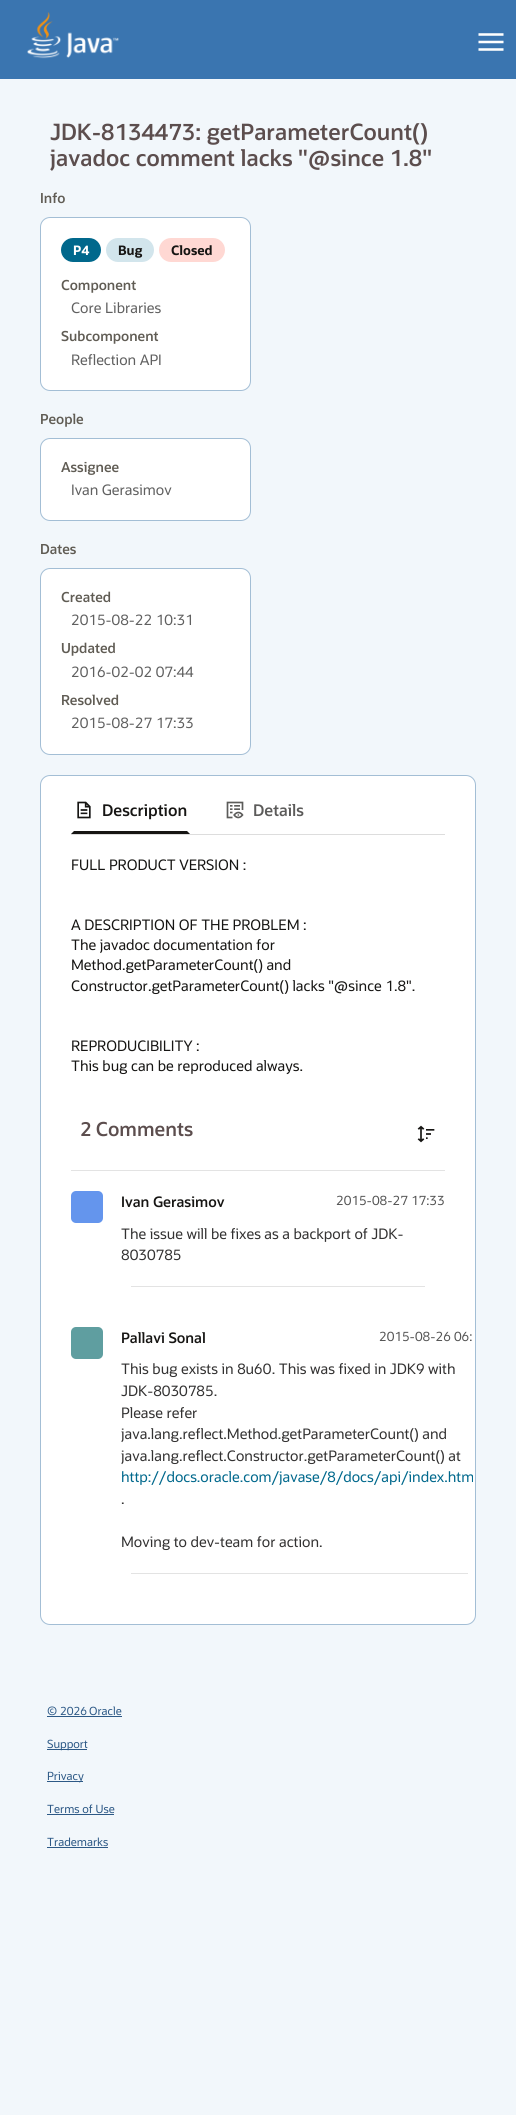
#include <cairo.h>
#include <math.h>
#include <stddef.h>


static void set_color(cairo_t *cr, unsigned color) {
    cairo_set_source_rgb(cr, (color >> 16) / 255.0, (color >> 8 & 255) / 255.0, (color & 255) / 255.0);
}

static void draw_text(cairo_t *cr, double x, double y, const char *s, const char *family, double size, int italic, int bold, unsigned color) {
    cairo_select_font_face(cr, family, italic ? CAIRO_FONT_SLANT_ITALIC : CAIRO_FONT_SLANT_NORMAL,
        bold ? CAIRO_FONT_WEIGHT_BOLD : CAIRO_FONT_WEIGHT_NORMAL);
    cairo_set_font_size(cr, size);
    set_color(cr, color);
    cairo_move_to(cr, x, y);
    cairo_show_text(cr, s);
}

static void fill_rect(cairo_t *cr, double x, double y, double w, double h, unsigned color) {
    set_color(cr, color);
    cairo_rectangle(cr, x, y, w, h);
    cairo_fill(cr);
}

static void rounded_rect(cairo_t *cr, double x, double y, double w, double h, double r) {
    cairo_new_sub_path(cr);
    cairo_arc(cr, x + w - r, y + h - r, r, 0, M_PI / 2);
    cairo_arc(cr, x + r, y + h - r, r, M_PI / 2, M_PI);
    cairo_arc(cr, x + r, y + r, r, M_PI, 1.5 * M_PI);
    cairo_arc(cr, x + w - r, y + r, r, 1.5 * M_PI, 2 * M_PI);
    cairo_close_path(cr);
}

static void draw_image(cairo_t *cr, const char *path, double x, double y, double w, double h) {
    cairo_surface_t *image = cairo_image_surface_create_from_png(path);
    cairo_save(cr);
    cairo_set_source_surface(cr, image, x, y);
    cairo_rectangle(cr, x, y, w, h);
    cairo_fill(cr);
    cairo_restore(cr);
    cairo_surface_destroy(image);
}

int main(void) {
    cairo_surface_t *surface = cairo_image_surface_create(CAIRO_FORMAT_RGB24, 516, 2115);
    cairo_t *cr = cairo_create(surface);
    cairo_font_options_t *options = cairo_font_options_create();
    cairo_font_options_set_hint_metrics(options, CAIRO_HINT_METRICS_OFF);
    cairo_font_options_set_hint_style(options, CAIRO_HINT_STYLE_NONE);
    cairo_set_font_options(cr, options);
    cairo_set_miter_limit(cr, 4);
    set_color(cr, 0x3A75B0);
    cairo_paint(cr);
    draw_image(cr, "assets/img1.png", 27, 12, 92, 47);
    draw_image(cr, "assets/img2.png", 478, 33, 26, 18);
    fill_rect(cr, 0, 79, 516, 2036, 0xF2F7FB);
    draw_text(cr, 50, 140, "JDK-8134473: getParameterCount()", "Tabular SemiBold", 22.4, 0, 0, 0x5C4E4E);
    draw_text(cr, 50, 166, "javadoc comment lacks \"@since 1.8\"", "Tabular SemiBold", 22.4, 0, 0, 0x5C4E4E);
    draw_text(cr, 40, 203, "Info", "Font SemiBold", 13.75, 0, 0, 0x605C54);
    set_color(cr, 0xFFFFFF);
    rounded_rect(cr, 40.5, 217.5, 210, 173, 9.5);
    cairo_fill_preserve(cr);
    set_color(cr, 0xA3BED5);
    cairo_set_line_width(cr, 1);
    cairo_stroke(cr);
    set_color(cr, 0x00688C);
    rounded_rect(cr, 61, 238, 40, 24, 12);
    cairo_fill(cr);
    draw_text(cr, 73, 255, "P4", "Font", 13, 0, 1, 0xFFFFFF);
    set_color(cr, 0xD2E5EC);
    rounded_rect(cr, 106, 238, 48, 24, 12);
    cairo_fill(cr);
    draw_text(cr, 118, 255, "Bug", "Font", 13, 0, 1, 0x161513);
    set_color(cr, 0xFFD8D3);
    rounded_rect(cr, 159, 238, 66, 24, 12);
    cairo_fill(cr);
    draw_text(cr, 171, 255, "Closed", "Font", 13, 0, 1, 0x161513);
    draw_text(cr, 61, 290, "Component", "Font SemiBold", 13.75, 0, 0, 0x605C54);
    draw_text(cr, 71, 313, "Core Libraries", "Font", 14.4, 0, 0, 0x606060);
    draw_text(cr, 61, 341, "Subcomponent", "Font SemiBold", 13.75, 0, 0, 0x605C54);
    draw_text(cr, 71, 365, "Reflection API", "Font", 14.4, 0, 0, 0x606060);
    draw_text(cr, 40, 424, "People", "Font SemiBold", 13.75, 0, 0, 0x605C54);
    set_color(cr, 0xFFFFFF);
    rounded_rect(cr, 40.5, 438.5, 210, 82, 9.5);
    cairo_fill_preserve(cr);
    set_color(cr, 0xA3BED5);
    cairo_stroke(cr);
    draw_text(cr, 61, 472, "Assignee", "Font SemiBold", 13.75, 0, 0, 0x605C54);
    draw_text(cr, 71, 495, "Ivan Gerasimov", "Font", 14.4, 0, 0, 0x606060);
    draw_text(cr, 40, 554, "Dates", "Font SemiBold", 13.75, 0, 0, 0x605C54);
    set_color(cr, 0xFFFFFF);
    rounded_rect(cr, 40.5, 568.5, 210, 186, 9.5);
    cairo_fill_preserve(cr);
    set_color(cr, 0xA3BED5);
    cairo_stroke(cr);
    draw_text(cr, 61, 602, "Created", "Font SemiBold", 13.75, 0, 0, 0x605C54);
    draw_text(cr, 71, 625, "2015-08-22 10:31", "Tabular", 14.4, 0, 0, 0x606060);
    draw_text(cr, 61, 653, "Updated", "Font SemiBold", 13.75, 0, 0, 0x605C54);
    draw_text(cr, 71, 677, "2016-02-02 07:44", "Tabular", 14.4, 0, 0, 0x606060);
    draw_text(cr, 61, 705, "Resolved", "Font SemiBold", 13.75, 0, 0, 0x605C54);
    draw_text(cr, 71, 728, "2015-08-27 17:33", "Tabular", 14.4, 0, 0, 0x606060);
    set_color(cr, 0xFFFFFF);
    rounded_rect(cr, 40.5, 775.5, 435, 849, 9.5);
    cairo_fill_preserve(cr);
    set_color(cr, 0xA3BED5);
    cairo_stroke(cr);
    fill_rect(cr, 71, 834, 374, 1, 0xDDDDDD);
    set_color(cr, 0x161513);
    cairo_new_path(cr);
    cairo_move_to(cr, 190, 834);
    cairo_line_to(cr, 71, 834);
    cairo_line_to(cr, 74, 831);
    cairo_line_to(cr, 187, 831);
    cairo_close_path(cr);
    cairo_fill(cr);
    draw_image(cr, "assets/img3.png", 77, 801, 14, 18);
    draw_text(cr, 102, 816, "Description", "Font SemiBold", 16, 0, 0, 0x161513);
    draw_image(cr, "assets/img4.png", 226, 801, 18, 18);
    draw_text(cr, 253, 816, "Details", "Font SemiBold", 16, 0, 0, 0x5C5B5A);
    draw_text(cr, 71, 870, "FULL PRODUCT VERSION :", "Font", 14.4, 0, 0, 0x161513);
    draw_text(cr, 71, 930, "A DESCRIPTION OF THE PROBLEM :", "Font", 14.4, 0, 0, 0x161513);
    draw_text(cr, 71, 950, "The javadoc documentation for", "Font", 14.4, 0, 0, 0x161513);
    draw_text(cr, 71, 970, "Method.getParameterCount() and", "Font", 14.4, 0, 0, 0x161513);
    draw_text(cr, 71, 991, "Constructor.getParameterCount() lacks \"@since 1.8\".", "Tabular", 14.4, 0, 0, 0x161513);
    draw_text(cr, 71, 1051, "REPRODUCIBILITY :", "Font", 14.4, 0, 0, 0x161513);
    draw_text(cr, 71, 1071, "This bug can be reproduced always.", "Font", 14.4, 0, 0, 0x161513);
    draw_text(cr, 81, 1136, "2 Comments", "Font SemiBold", 19.25, 0, 0, 0x5C4E4E);
    draw_image(cr, "assets/img5.png", 417, 1125, 18, 18);
    fill_rect(cr, 71, 1170, 374, 1, 0xE3E3E3);
    set_color(cr, 0x6495ED);
    rounded_rect(cr, 71, 1191, 32, 32, 5);
    cairo_fill(cr);
    draw_text(cr, 121, 1207, "Ivan Gerasimov", "Font SemiBold", 14.4, 0, 0, 0x161513);
    draw_text(cr, 336, 1205, "2015-08-27 17:33", "Tabular", 12.75, 0, 0, 0x555555);
    draw_text(cr, 121, 1239, "The issue will be fixes as a backport of JDK-", "Font", 14.4, 0, 0, 0x333232);
    draw_text(cr, 121, 1260, "8030785", "Tabular", 14.4, 0, 0, 0x333232);
    fill_rect(cr, 131, 1286, 294, 1, 0xE3E3E3);
    set_color(cr, 0x5F9EA0);
    rounded_rect(cr, 71, 1327, 32, 32, 5);
    cairo_fill(cr);
    draw_text(cr, 121, 1343, "Pallavi Sonal", "Font SemiBold", 14.4, 0, 0, 0x161513);
    draw_text(cr, 379, 1341, "2015-08-26 06:", "Tabular", 12.75, 0, 0, 0x555555);
    draw_text(cr, 121, 1374, "This bug exists in 8u60. This was fixed in JDK9 with", "Font", 14.4, 0, 0, 0x333232);
    draw_text(cr, 121, 1396, "JDK-8030785.", "Tabular", 14.4, 0, 0, 0x333232);
    draw_text(cr, 121, 1418, "Please refer", "Font", 14.4, 0, 0, 0x333232);
    draw_text(cr, 121, 1439, "java.lang.reflect.Method.getParameterCount() and", "Font", 14.4, 0, 0, 0x333232);
    draw_text(cr, 121, 1461, "java.lang.reflect.Constructor.getParameterCount() at", "Font", 14.4, 0, 0, 0x333232);
    draw_text(cr, 121, 1482, "http://docs.oracle.com/javase/8/docs/api/index.htm", "Font", 14.4, 0, 0, 0x00688C);
    draw_text(cr, 121, 1504, ".", "Font", 14.4, 0, 0, 0x333232);
    draw_text(cr, 121, 1547, "Moving to dev-team for action.", "Font", 14.4, 0, 0, 0x333232);
    fill_rect(cr, 131, 1573, 337, 1, 0xE3E3E3);
    draw_text(cr, 47, 1715, "©", "Font", 11.25, 0, 0, 0x2D5986);
    fill_rect(cr, 47, 1716, 75, 1, 0x2D5986);
    draw_text(cr, 60, 1715, "2026", "Tabular", 11.25, 0, 0, 0x2D5986);
    draw_text(cr, 89, 1715, "Oracle", "Font", 11.25, 0, 0, 0x2D5986);
    fill_rect(cr, 47, 1749, 40, 1, 0x2D5986);
    draw_text(cr, 47, 1748, "Support", "Font", 11.25, 0, 0, 0x2D5986);
    fill_rect(cr, 47, 1781, 36, 1, 0x2D5986);
    draw_text(cr, 47, 1780, "Privacy", "Font", 11.25, 0, 0, 0x2D5986);
    draw_text(cr, 47, 1813, "Terms of Use", "Font", 11.25, 0, 0, 0x2D5986);
    fill_rect(cr, 47, 1814, 67, 1, 0x2D5986);
    draw_text(cr, 47, 1846, "Trademarks", "Font", 11.25, 0, 0, 0x2D5986);
    fill_rect(cr, 47, 1847, 61, 1, 0x2D5986);
    cairo_surface_write_to_png(surface, "output.png");
    cairo_font_options_destroy(options);
    cairo_destroy(cr);
    cairo_surface_destroy(surface);
    return 0;
}
